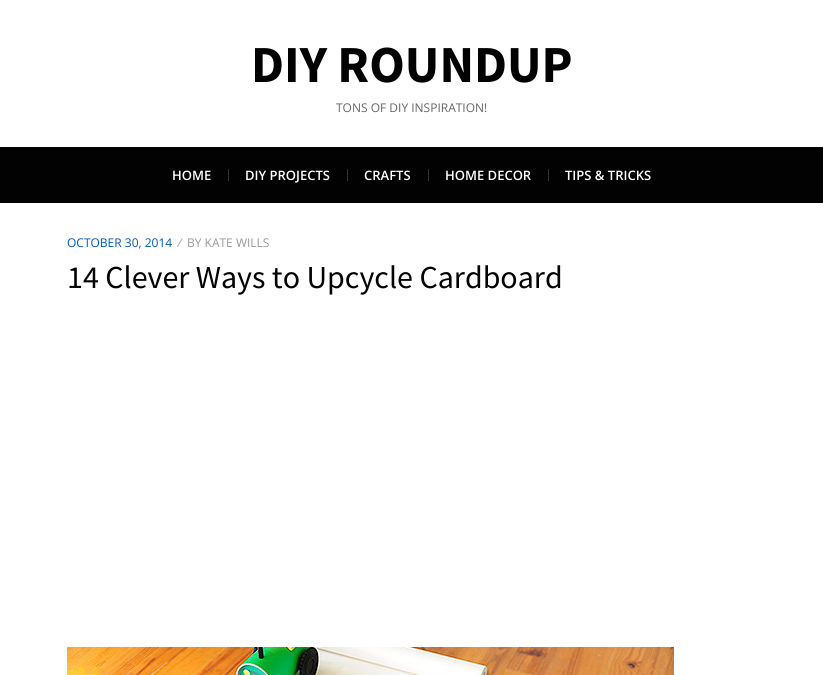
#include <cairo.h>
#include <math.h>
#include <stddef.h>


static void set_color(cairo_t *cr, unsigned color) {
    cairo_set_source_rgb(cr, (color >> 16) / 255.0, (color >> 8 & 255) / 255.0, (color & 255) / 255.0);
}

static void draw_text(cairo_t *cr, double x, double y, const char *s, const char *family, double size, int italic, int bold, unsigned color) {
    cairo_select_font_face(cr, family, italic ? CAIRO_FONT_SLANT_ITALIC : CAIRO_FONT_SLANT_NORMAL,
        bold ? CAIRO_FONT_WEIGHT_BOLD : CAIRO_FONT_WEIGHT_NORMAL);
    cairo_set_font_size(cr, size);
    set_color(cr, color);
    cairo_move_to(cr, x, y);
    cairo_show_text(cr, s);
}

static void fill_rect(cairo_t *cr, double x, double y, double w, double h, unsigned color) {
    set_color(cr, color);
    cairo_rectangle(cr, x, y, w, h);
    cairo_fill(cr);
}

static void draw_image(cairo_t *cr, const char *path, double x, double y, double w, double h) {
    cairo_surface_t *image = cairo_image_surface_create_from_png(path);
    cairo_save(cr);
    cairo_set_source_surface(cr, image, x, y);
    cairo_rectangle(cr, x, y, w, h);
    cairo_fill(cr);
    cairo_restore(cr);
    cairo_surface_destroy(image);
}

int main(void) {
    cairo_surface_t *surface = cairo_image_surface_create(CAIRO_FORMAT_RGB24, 823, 675);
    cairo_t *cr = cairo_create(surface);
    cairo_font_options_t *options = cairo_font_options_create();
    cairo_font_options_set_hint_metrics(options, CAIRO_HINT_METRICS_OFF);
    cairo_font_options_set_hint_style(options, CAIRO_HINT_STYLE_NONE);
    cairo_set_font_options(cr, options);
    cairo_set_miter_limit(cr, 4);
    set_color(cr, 0xFFFFFF);
    cairo_paint(cr);
    draw_text(cr, 251, 82, "DIY ROUNDUP", "Source Sans Pro", 52, 0, 1, 0x020202);
    draw_text(cr, 336, 112, "TONS OF DIY INSPIRATION!", "Open Sans", 12, 0, 0, 0x666666);
    fill_rect(cr, 0, 147, 823, 56, 0x020202);
    draw_text(cr, 172, 180, "HOME", "Open Sans SemiBold", 13, 0, 0, 0xFFFFFF);
    fill_rect(cr, 228, 169, 1, 12, 0x333333);
    draw_text(cr, 245, 180, "DIY PROJECTS", "Open Sans SemiBold", 13, 0, 0, 0xFFFFFF);
    fill_rect(cr, 347, 169, 1, 12, 0x333333);
    draw_text(cr, 364, 180, "CRAFTS", "Open Sans SemiBold", 13, 0, 0, 0xFFFFFF);
    fill_rect(cr, 428, 169, 1, 12, 0x333333);
    draw_text(cr, 445, 180, "HOME DECOR", "Open Sans SemiBold", 13, 0, 0, 0xFFFFFF);
    fill_rect(cr, 548, 169, 1, 12, 0x333333);
    draw_text(cr, 565, 180, "TIPS & TRICKS", "Open Sans SemiBold", 13, 0, 0, 0xFFFFFF);
    draw_text(cr, 67, 247, "OCTOBER 30, 2014", "Open Sans", 12, 0, 0, 0x0059B3);
    draw_text(cr, 179, 247, "⁄", "Open Sans", 12, 0, 0, 0x999999);
    draw_text(cr, 187, 247, "BY KATE WILLS", "Open Sans", 12, 0, 0, 0x999999);
    draw_text(cr, 67, 288, "14 Clever Ways to Upcycle Cardboard", "Source Sans Pro", 32, 0, 0, 0x020202);
    draw_image(cr, "assets/img1.png", 67, 647, 607, 28);
    cairo_surface_write_to_png(surface, "output.png");
    cairo_font_options_destroy(options);
    cairo_destroy(cr);
    cairo_surface_destroy(surface);
    return 0;
}
